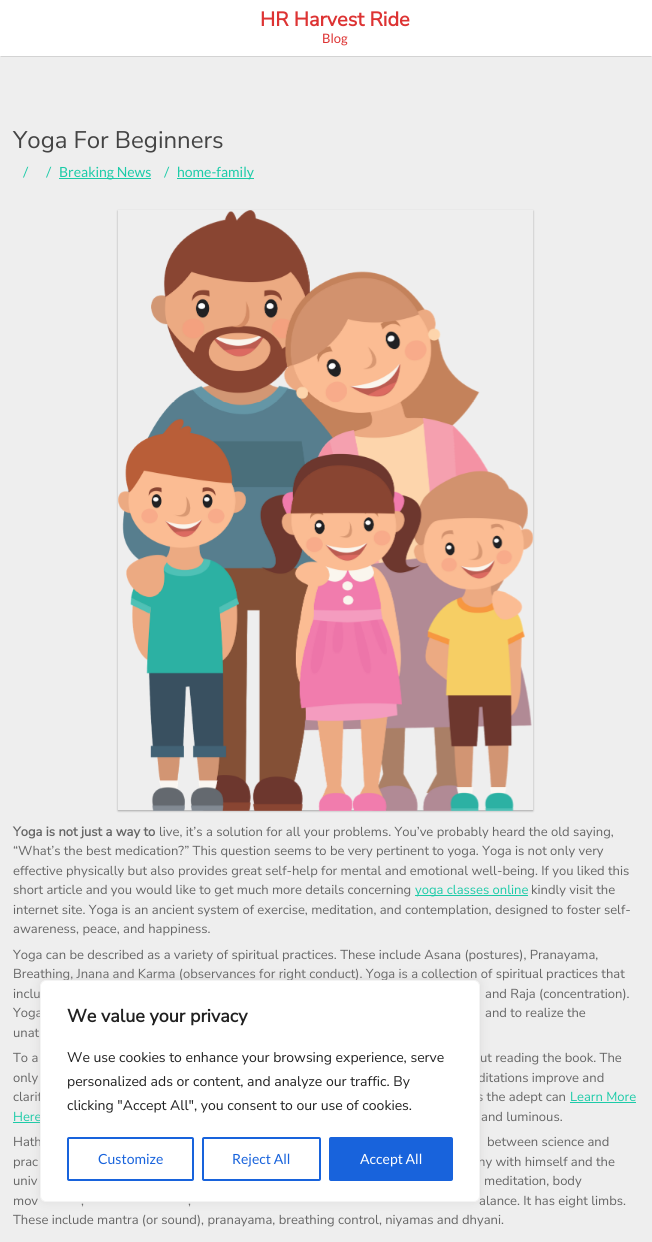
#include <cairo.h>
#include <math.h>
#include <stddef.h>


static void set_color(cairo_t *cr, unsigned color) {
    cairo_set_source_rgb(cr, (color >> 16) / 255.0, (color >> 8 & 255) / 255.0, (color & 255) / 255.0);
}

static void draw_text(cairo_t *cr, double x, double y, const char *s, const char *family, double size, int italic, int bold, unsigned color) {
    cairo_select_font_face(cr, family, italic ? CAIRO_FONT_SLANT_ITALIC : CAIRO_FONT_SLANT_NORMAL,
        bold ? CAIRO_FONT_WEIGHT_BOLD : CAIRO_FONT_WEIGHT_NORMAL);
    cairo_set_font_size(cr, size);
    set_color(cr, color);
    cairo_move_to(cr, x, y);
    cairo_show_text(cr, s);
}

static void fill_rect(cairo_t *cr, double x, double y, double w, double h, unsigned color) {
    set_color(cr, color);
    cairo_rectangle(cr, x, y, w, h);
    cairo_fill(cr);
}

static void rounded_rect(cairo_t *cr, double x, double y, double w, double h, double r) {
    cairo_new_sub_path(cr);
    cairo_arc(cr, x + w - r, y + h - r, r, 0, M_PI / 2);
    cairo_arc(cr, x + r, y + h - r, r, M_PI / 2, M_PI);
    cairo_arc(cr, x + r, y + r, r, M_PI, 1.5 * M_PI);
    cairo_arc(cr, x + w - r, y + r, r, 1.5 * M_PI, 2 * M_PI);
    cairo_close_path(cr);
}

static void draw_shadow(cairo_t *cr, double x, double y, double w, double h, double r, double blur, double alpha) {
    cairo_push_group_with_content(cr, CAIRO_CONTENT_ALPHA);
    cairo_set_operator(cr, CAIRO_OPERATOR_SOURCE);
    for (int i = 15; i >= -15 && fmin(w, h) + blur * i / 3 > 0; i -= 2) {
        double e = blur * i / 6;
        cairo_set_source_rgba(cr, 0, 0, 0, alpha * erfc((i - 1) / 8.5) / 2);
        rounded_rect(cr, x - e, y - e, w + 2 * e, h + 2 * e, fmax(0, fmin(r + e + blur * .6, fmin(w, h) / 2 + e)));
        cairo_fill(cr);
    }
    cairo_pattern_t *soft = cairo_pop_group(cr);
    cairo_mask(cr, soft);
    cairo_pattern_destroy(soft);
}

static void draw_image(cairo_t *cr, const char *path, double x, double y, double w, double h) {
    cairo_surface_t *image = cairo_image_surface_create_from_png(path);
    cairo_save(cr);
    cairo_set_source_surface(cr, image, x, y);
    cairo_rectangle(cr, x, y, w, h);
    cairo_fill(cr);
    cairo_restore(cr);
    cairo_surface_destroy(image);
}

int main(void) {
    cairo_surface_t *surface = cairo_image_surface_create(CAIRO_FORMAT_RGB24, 652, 1242);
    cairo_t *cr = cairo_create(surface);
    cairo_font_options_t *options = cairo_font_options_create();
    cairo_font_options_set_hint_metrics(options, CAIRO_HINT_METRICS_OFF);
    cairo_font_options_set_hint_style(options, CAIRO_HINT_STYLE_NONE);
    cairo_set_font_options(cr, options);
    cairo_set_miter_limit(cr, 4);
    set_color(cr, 0xEEEEEE);
    cairo_paint(cr);
    set_color(cr, 0x808080);
    draw_shadow(cr, 1, 2, 650, 54, 0, 0.5, 1);
    fill_rect(cr, 0, 0, 652, 56, 0xFFFFFF);
    draw_text(cr, 260, 26, "HR Harvest Ride", "Nunito Sans", 20, 0, 1, 0xDD3333);
    draw_text(cr, 322, 43, "Blog", "Lato", 13, 0, 0, 0xDD3333);
    draw_text(cr, 13, 148, "Yoga For Beginners", "Nunito Sans ExtraLight", 24, 0, 0, 0x444444);
    draw_text(cr, 23, 177, "/", "Lato", 14, 0, 0, 0x1CCBA8);
    draw_text(cr, 46, 177, "/", "Lato", 14, 0, 0, 0x1CCBA8);
    fill_rect(cr, 59, 178, 92, 1, 0x1CCBA8);
    draw_text(cr, 59, 177, "Breaking News", "Lato", 14, 0, 0, 0x1CCBA8);
    draw_text(cr, 164, 177, "/", "Lato", 14, 0, 0, 0x1CCBA8);
    fill_rect(cr, 177, 178, 77, 1, 0x1CCBA8);
    draw_text(cr, 177, 177, "home-family", "Lato", 14, 0, 0, 0x1CCBA8);
    cairo_save(cr);
    cairo_set_fill_rule(cr, CAIRO_FILL_RULE_EVEN_ODD);
    cairo_new_path(cr);
    cairo_move_to(cr, 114, 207);
    cairo_line_to(cr, 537, 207);
    cairo_line_to(cr, 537, 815);
    cairo_line_to(cr, 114, 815);
    cairo_close_path(cr);
    cairo_move_to(cr, 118, 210);
    cairo_line_to(cr, 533, 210);
    cairo_line_to(cr, 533, 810);
    cairo_line_to(cr, 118, 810);
    cairo_close_path(cr);
    cairo_clip(cr);
    set_color(cr, 0x000000);
    draw_shadow(cr, 118, 211, 415, 600, 0, 1, 0.3);
    cairo_restore(cr);
    draw_image(cr, "assets/img1.png", 118, 210, 415, 601);
    draw_text(cr, 13, 836, "Yoga is not just a way to", "Nunito Sans", 13, 0, 1, 0x666666);
    draw_text(cr, 159, 836, "live, it’s a solution for all your problems. You’ve probably heard the old saying,", "Nunito Sans ExtraLight", 13, 0, 0, 0x666666);
    draw_text(cr, 13, 855, "“What’s the best medication?” This question seems to be very pertinent to yoga. Yoga is not only very", "Nunito Sans ExtraLight", 13, 0, 0, 0x666666);
    draw_text(cr, 13, 875, "effective physically but also provides great self-help for mental and emotional well-being. If you liked this", "Nunito Sans ExtraLight", 13, 0, 0, 0x666666);
    draw_text(cr, 13, 894, "short article and you would like to get much more details concerning", "Nunito Sans ExtraLight", 13, 0, 0, 0x666666);
    fill_rect(cr, 415, 895, 113, 1, 0x1CCBA8);
    draw_text(cr, 415, 894, "yoga classes online", "Nunito Sans ExtraLight", 13, 0, 0, 0x1CCBA8);
    draw_text(cr, 531, 894, "kindly visit the", "Nunito Sans ExtraLight", 13, 0, 0, 0x666666);
    draw_text(cr, 13, 914, "internet site. Yoga is an ancient system of exercise, meditation, and contemplation, designed to foster self-", "Nunito Sans ExtraLight", 13, 0, 0, 0x666666);
    draw_text(cr, 13, 933, "awareness, peace, and happiness.", "Nunito Sans ExtraLight", 13, 0, 0, 0x666666);
    draw_text(cr, 13, 959, "Yoga can be described as a variety of spiritual practices. These include Asana (postures), Pranayama,", "Nunito Sans ExtraLight", 13, 0, 0, 0x666666);
    draw_text(cr, 13, 978, "Breathing, Jnana and Karma (observances for right conduct). Yoga is a collection of spiritual practices that", "Nunito Sans ExtraLight", 13, 0, 0, 0x666666);
    draw_text(cr, 13, 998, "inclu", "Nunito Sans ExtraLight", 13, 0, 0, 0x666666);
    draw_text(cr, 485, 998, "and Raja (concentration).", "Nunito Sans ExtraLight", 13, 0, 0, 0x666666);
    draw_text(cr, 13, 1017, "Yoga", "Nunito Sans ExtraLight", 13, 0, 0, 0x666666);
    draw_text(cr, 485, 1017, "and to realize the", "Nunito Sans ExtraLight", 13, 0, 0, 0x666666);
    draw_text(cr, 13, 1037, "unat", "Nunito Sans ExtraLight", 13, 0, 0, 0x666666);
    draw_text(cr, 13, 1062, "To a", "Nunito Sans ExtraLight", 13, 0, 0, 0x666666);
    draw_text(cr, 480, 1062, "ut reading the book. The", "Nunito Sans ExtraLight", 13, 0, 0, 0x666666);
    draw_text(cr, 13, 1082, "only", "Nunito Sans ExtraLight", 13, 0, 0, 0x666666);
    draw_text(cr, 478, 1082, "ditations improve and", "Nunito Sans ExtraLight", 13, 0, 0, 0x666666);
    draw_text(cr, 13, 1101, "clarif", "Nunito Sans ExtraLight", 13, 0, 0, 0x666666);
    draw_text(cr, 477, 1101, "s the adept can", "Nunito Sans ExtraLight", 13, 0, 0, 0x666666);
    draw_text(cr, 570, 1101, "Learn More", "Nunito Sans ExtraLight", 13, 0, 0, 0x1CCBA8);
    fill_rect(cr, 570, 1102, 66, 1, 0x1CCBA8);
    draw_text(cr, 13, 1121, "Here", "Nunito Sans ExtraLight", 13, 0, 0, 0x1CCBA8);
    fill_rect(cr, 13, 1122, 28, 1, 0x1CCBA8);
    draw_text(cr, 481, 1121, "and luminous.", "Nunito Sans ExtraLight", 13, 0, 0, 0x666666);
    draw_text(cr, 13, 1146, "Hath", "Nunito Sans ExtraLight", 13, 0, 0, 0x666666);
    draw_text(cr, 487, 1146, "between science and", "Nunito Sans ExtraLight", 13, 0, 0, 0x666666);
    draw_text(cr, 13, 1166, "prac", "Nunito Sans ExtraLight", 13, 0, 0, 0x666666);
    draw_text(cr, 478, 1166, "ny with himself and the", "Nunito Sans ExtraLight", 13, 0, 0, 0x666666);
    draw_text(cr, 13, 1185, "univ", "Nunito Sans ExtraLight", 13, 0, 0, 0x666666);
    draw_text(cr, 484, 1185, "meditation, body", "Nunito Sans ExtraLight", 13, 0, 0, 0x666666);
    draw_text(cr, 13, 1205, "mov", "Nunito Sans ExtraLight", 13, 0, 0, 0x666666);
    draw_text(cr, 81, 1205, ",", "Nunito Sans ExtraLight", 13, 0, 0, 0x666666);
    draw_text(cr, 188, 1205, ",", "Nunito Sans ExtraLight", 13, 0, 0, 0x666666);
    draw_text(cr, 479, 1205, "alance. It has eight limbs.", "Nunito Sans ExtraLight", 13, 0, 0, 0x666666);
    draw_text(cr, 13, 1224, "These include mantra (or sound), pranayama, breathing control, niyamas and dhyani.", "Nunito Sans ExtraLight", 13, 0, 0, 0x666666);
    set_color(cr, 0xACABAB);
    draw_shadow(cr, 40, 979, 440, 222, 6, 5, 0.3);
    set_color(cr, 0xFFFFFF);
    rounded_rect(cr, 40.5, 980.5, 439, 221, 5.5);
    cairo_fill_preserve(cr);
    set_color(cr, 0xF4F4F4);
    cairo_set_line_width(cr, 1);
    cairo_stroke(cr);
    draw_text(cr, 67, 1022, "We value your privacy", "Nunito Sans", 18, 0, 1, 0x212121);
    draw_text(cr, 67, 1062, "We use cookies to enhance your browsing experience, serve", "Nunito Sans ExtraLight", 14, 0, 0, 0x212121);
    draw_text(cr, 67, 1086, "personalized ads or content, and analyze our traffic. By", "Nunito Sans ExtraLight", 14, 0, 0, 0x212121);
    draw_text(cr, 67, 1110, "clicking \"Accept All\", you consent to our use of cookies.", "Nunito Sans ExtraLight", 14, 0, 0, 0x212121);
    rounded_rect(cr, 68, 1138, 125, 42, 1);
    set_color(cr, 0x1863DC);
    cairo_set_line_width(cr, 2);
    cairo_stroke(cr);
    draw_text(cr, 98, 1164, "Customize", "Lato", 14, 0, 0, 0x1863DC);
    rounded_rect(cr, 203, 1138, 117, 42, 1);
    cairo_stroke(cr);
    draw_text(cr, 232, 1164, "Reject All", "Lato", 14, 0, 0, 0x1863DC);
    rounded_rect(cr, 330, 1138, 122, 42, 1);
    cairo_fill_preserve(cr);
    cairo_stroke(cr);
    draw_text(cr, 360, 1164, "Accept All", "Lato", 14, 0, 0, 0xFFFFFF);
    cairo_surface_write_to_png(surface, "output.png");
    cairo_font_options_destroy(options);
    cairo_destroy(cr);
    cairo_surface_destroy(surface);
    return 0;
}
